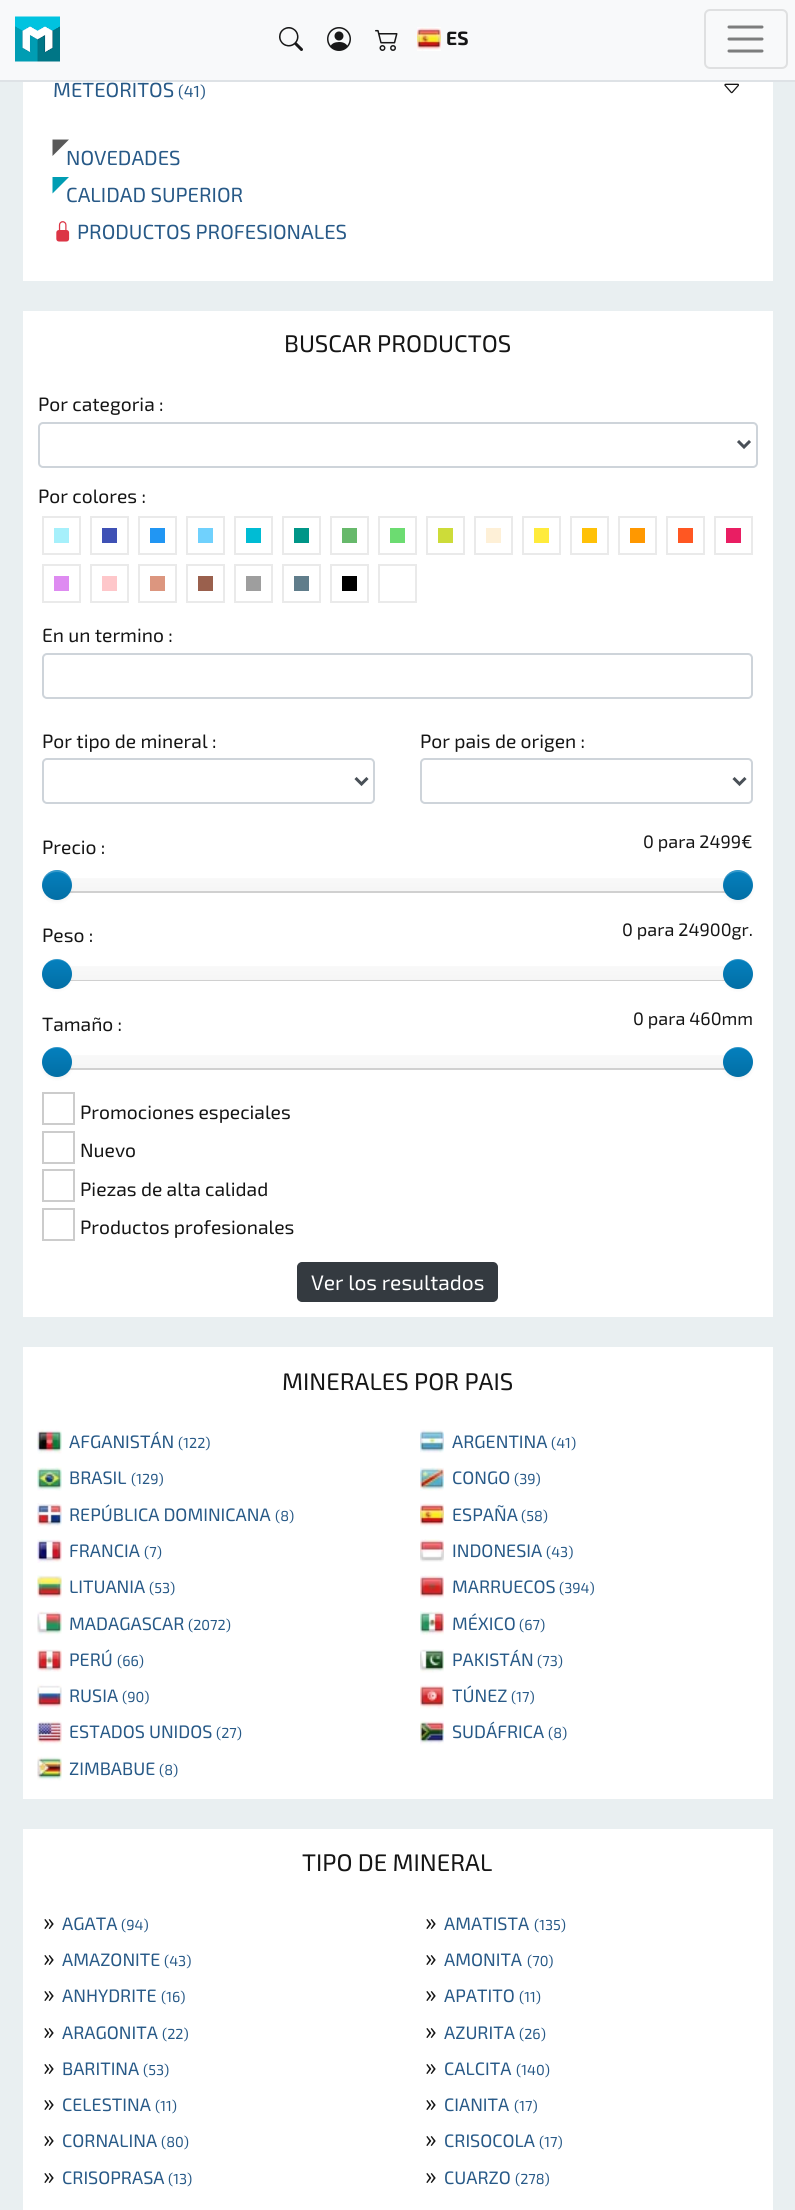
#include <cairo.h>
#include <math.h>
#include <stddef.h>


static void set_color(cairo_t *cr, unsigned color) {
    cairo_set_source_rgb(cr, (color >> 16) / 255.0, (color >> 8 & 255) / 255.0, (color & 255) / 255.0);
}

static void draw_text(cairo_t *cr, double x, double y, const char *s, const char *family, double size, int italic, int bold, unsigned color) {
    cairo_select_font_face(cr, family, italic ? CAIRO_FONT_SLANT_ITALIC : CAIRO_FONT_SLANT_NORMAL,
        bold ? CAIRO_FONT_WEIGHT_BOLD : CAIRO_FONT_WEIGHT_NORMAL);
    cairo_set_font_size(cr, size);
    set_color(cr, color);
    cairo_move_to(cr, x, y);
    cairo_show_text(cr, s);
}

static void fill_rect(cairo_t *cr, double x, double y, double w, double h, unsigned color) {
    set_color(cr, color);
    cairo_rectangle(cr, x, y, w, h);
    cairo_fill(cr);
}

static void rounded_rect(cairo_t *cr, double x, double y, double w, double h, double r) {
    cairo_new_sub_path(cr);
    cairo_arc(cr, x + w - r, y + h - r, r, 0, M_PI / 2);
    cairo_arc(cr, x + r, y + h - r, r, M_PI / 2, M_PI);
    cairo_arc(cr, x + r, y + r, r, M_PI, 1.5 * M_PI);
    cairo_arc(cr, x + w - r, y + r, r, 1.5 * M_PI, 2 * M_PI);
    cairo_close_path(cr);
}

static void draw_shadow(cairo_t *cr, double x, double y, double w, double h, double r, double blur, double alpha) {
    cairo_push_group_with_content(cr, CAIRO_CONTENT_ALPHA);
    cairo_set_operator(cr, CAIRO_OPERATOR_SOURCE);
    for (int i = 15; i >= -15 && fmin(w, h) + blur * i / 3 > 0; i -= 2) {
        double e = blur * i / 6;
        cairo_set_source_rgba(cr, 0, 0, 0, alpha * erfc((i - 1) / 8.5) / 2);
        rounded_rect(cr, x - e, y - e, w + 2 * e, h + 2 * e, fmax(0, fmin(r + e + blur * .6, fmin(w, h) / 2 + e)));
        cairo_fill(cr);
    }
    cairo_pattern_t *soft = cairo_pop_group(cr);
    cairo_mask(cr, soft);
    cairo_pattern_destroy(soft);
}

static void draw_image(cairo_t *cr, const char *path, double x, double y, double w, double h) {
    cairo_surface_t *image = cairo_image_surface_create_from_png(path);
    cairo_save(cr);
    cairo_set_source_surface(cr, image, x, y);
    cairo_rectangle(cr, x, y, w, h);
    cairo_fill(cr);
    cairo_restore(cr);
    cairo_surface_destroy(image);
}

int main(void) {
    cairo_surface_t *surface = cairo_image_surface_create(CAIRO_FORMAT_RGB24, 795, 2210);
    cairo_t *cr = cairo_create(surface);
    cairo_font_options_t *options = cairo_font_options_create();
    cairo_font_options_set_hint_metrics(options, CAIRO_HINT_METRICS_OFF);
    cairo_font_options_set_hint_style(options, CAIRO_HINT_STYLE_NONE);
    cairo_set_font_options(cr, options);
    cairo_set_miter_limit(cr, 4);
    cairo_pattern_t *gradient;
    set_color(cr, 0xE9EFF1);
    cairo_paint(cr);
    fill_rect(cr, 0, 0, 795, 80, 0xF8F9FA);
    fill_rect(cr, 0, 80, 795, 2, 0xDEE2E6);
    draw_image(cr, "assets/img1.png", 15, 16, 45, 46);
    draw_image(cr, "assets/img2.png", 279, 27, 24, 24);
    draw_image(cr, "assets/img3.png", 327, 27, 24, 24);
    draw_image(cr, "assets/img4.png", 375, 29, 23, 22);
    draw_image(cr, "assets/img5.png", 417, 27, 24, 24);
    draw_text(cr, 446, 45, "ES", "Exo 2", 19.25, 0, 1, 0x151515);
    rounded_rect(cr, 705, 10, 82, 58, 5);
    set_color(cr, 0xDFE0E1);
    cairo_stroke(cr);
    cairo_new_path(cr);
    cairo_move_to(cr, 729, 27);
    cairo_line_to(cr, 762, 27);
    cairo_move_to(cr, 729, 39);
    cairo_line_to(cr, 762, 39);
    cairo_move_to(cr, 729, 51);
    cairo_line_to(cr, 762, 51);
    set_color(cr, 0x7C7D7D);
    cairo_set_line_width(cr, 3);
    cairo_set_line_cap(cr, CAIRO_LINE_CAP_ROUND);
    cairo_stroke(cr);
    fill_rect(cr, 23, 82, 750, 199, 0xFFFFFF);
    draw_text(cr, 53, 97, "METEORITOS", "Exo 2", 20.4, 0, 0, 0x275987);
    draw_text(cr, 178, 97, "(41)", "Exo 2", 16, 0, 0, 0x275987);
    draw_image(cr, "assets/img6.png", 724, 83, 15, 11);
    draw_text(cr, 66, 165, "NOVEDADES", "Exo 2", 20.4, 0, 0, 0x275987);
    set_color(cr, 0x595959);
    cairo_new_path(cr);
    cairo_move_to(cr, 52.5, 139.5);
    cairo_line_to(cr, 69, 139.5);
    cairo_line_to(cr, 52.5, 156);
    cairo_close_path(cr);
    cairo_fill(cr);
    draw_text(cr, 66, 202, "CALIDAD SUPERIOR", "Exo 2", 20.4, 0, 0, 0x275987);
    set_color(cr, 0x009DB3);
    cairo_new_path(cr);
    cairo_move_to(cr, 52.5, 177);
    cairo_line_to(cr, 69, 177);
    cairo_line_to(cr, 52.5, 193.5);
    cairo_close_path(cr);
    cairo_fill(cr);
    draw_image(cr, "assets/img7.png", 56, 221, 14, 21);
    draw_text(cr, 77, 239, "PRODUCTOS PROFESIONALES", "Exo 2", 20.4, 0, 0, 0x275987);
    fill_rect(cr, 23, 311, 750, 1006, 0xFFFFFF);
    draw_text(cr, 284, 352, "BUSCAR PRODUCTOS", "Exo 2", 24, 0, 0, 0x151515);
    draw_text(cr, 38, 411, "Por categoria :", "Exo 2", 19.25, 0, 0, 0x151515);
    rounded_rect(cr, 39, 423, 718, 44, 4);
    set_color(cr, 0xCED4DA);
    cairo_set_line_width(cr, 2);
    cairo_set_line_cap(cr, CAIRO_LINE_CAP_BUTT);
    cairo_stroke(cr);
    cairo_new_path(cr);
    cairo_move_to(cr, 738, 441);
    cairo_line_to(cr, 744, 447);
    cairo_line_to(cr, 750, 441);
    set_color(cr, 0x495057);
    cairo_set_line_width(cr, 3);
    cairo_stroke(cr);
    draw_text(cr, 38, 503, "Por colores :", "Exo 2", 19.25, 0, 0, 0x151515);
    cairo_rectangle(cr, 43, 517, 37, 37);
    set_color(cr, 0xEAEAEA);
    cairo_set_line_width(cr, 2);
    cairo_stroke(cr);
    fill_rect(cr, 54, 528, 15, 15, 0xA6F0FB);
    cairo_rectangle(cr, 91, 517, 37, 37);
    set_color(cr, 0xEAEAEA);
    cairo_stroke(cr);
    fill_rect(cr, 102, 528, 15, 15, 0x3F51B5);
    cairo_rectangle(cr, 139, 517, 37, 37);
    set_color(cr, 0xEAEAEA);
    cairo_stroke(cr);
    fill_rect(cr, 150, 528, 15, 15, 0x2196F3);
    cairo_rectangle(cr, 187, 517, 37, 37);
    set_color(cr, 0xEAEAEA);
    cairo_stroke(cr);
    fill_rect(cr, 198, 528, 15, 15, 0x70D1FD);
    cairo_rectangle(cr, 235, 517, 37, 37);
    set_color(cr, 0xEAEAEA);
    cairo_stroke(cr);
    fill_rect(cr, 246, 528, 15, 15, 0x00BCD4);
    cairo_rectangle(cr, 283, 517, 37, 37);
    set_color(cr, 0xEAEAEA);
    cairo_stroke(cr);
    fill_rect(cr, 294, 528, 15, 15, 0x009688);
    cairo_rectangle(cr, 331, 517, 37, 37);
    set_color(cr, 0xEAEAEA);
    cairo_stroke(cr);
    fill_rect(cr, 342, 528, 15, 15, 0x67B96B);
    cairo_rectangle(cr, 379, 517, 37, 37);
    set_color(cr, 0xEAEAEA);
    cairo_stroke(cr);
    fill_rect(cr, 390, 528, 15, 15, 0x6CDC71);
    cairo_rectangle(cr, 427, 517, 37, 37);
    set_color(cr, 0xEAEAEA);
    cairo_stroke(cr);
    fill_rect(cr, 438, 528, 15, 15, 0xCDDC39);
    cairo_rectangle(cr, 475, 517, 37, 37);
    set_color(cr, 0xEAEAEA);
    cairo_stroke(cr);
    fill_rect(cr, 486, 528, 15, 15, 0xFEF0D7);
    cairo_rectangle(cr, 523, 517, 37, 37);
    set_color(cr, 0xEAEAEA);
    cairo_stroke(cr);
    fill_rect(cr, 534, 528, 15, 15, 0xFFEB3B);
    cairo_rectangle(cr, 571, 517, 37, 37);
    set_color(cr, 0xEAEAEA);
    cairo_stroke(cr);
    fill_rect(cr, 582, 528, 15, 15, 0xFFC107);
    cairo_rectangle(cr, 619, 517, 37, 37);
    set_color(cr, 0xEAEAEA);
    cairo_stroke(cr);
    fill_rect(cr, 630, 528, 15, 15, 0xFF9800);
    cairo_rectangle(cr, 667, 517, 37, 37);
    set_color(cr, 0xEAEAEA);
    cairo_stroke(cr);
    fill_rect(cr, 678, 528, 15, 15, 0xFF5722);
    cairo_rectangle(cr, 715, 517, 37, 37);
    set_color(cr, 0xEAEAEA);
    cairo_stroke(cr);
    fill_rect(cr, 726, 528, 15, 15, 0xE91E63);
    cairo_rectangle(cr, 43, 565, 37, 37);
    set_color(cr, 0xEAEAEA);
    cairo_stroke(cr);
    fill_rect(cr, 54, 576, 15, 15, 0xDE8BF1);
    cairo_rectangle(cr, 91, 565, 37, 37);
    set_color(cr, 0xEAEAEA);
    cairo_stroke(cr);
    fill_rect(cr, 102, 576, 15, 15, 0xFEC7CA);
    cairo_rectangle(cr, 139, 565, 37, 37);
    set_color(cr, 0xEAEAEA);
    cairo_stroke(cr);
    fill_rect(cr, 150, 576, 15, 15, 0xDC967F);
    cairo_rectangle(cr, 187, 565, 37, 37);
    set_color(cr, 0xEAEAEA);
    cairo_stroke(cr);
    fill_rect(cr, 198, 576, 15, 15, 0x9A604D);
    cairo_rectangle(cr, 235, 565, 37, 37);
    set_color(cr, 0xEAEAEA);
    cairo_stroke(cr);
    fill_rect(cr, 246, 576, 15, 15, 0x9E9E9E);
    cairo_rectangle(cr, 283, 565, 37, 37);
    set_color(cr, 0xEAEAEA);
    cairo_stroke(cr);
    fill_rect(cr, 294, 576, 15, 15, 0x607D8B);
    cairo_rectangle(cr, 331, 565, 37, 37);
    set_color(cr, 0xEAEAEA);
    cairo_stroke(cr);
    fill_rect(cr, 342, 576, 15, 15, 0x000000);
    cairo_rectangle(cr, 379, 565, 37, 37);
    set_color(cr, 0xEAEAEA);
    cairo_stroke(cr);
    draw_text(cr, 42, 642, "En un termino :", "Exo 2", 19.25, 0, 0, 0x151515);
    rounded_rect(cr, 43, 654, 709, 44, 4);
    set_color(cr, 0xCED4DA);
    cairo_stroke(cr);
    draw_text(cr, 42, 748, "Por tipo de mineral :", "Exo 2", 19.25, 0, 0, 0x151515);
    rounded_rect(cr, 43, 759, 331, 44, 4);
    set_color(cr, 0xCED4DA);
    cairo_stroke(cr);
    cairo_new_path(cr);
    cairo_move_to(cr, 355.5, 778);
    cairo_line_to(cr, 361.5, 784);
    cairo_line_to(cr, 367.5, 778);
    set_color(cr, 0x495057);
    cairo_set_line_width(cr, 3);
    cairo_stroke(cr);
    draw_text(cr, 420, 748, "Por pais de origen :", "Exo 2", 19.25, 0, 0, 0x151515);
    rounded_rect(cr, 421, 759, 331, 44, 4);
    set_color(cr, 0xCED4DA);
    cairo_set_line_width(cr, 2);
    cairo_stroke(cr);
    cairo_new_path(cr);
    cairo_move_to(cr, 733.5, 778);
    cairo_line_to(cr, 739.5, 784);
    cairo_line_to(cr, 745.5, 778);
    set_color(cr, 0x495057);
    cairo_set_line_width(cr, 3);
    cairo_stroke(cr);
    draw_text(cr, 42, 854, "Precio :", "Exo 2", 19.25, 0, 0, 0x151515);
    draw_text(cr, 643, 848, "0 para 2499€", "Exo 2", 18, 0, 0, 0x151515);
    gradient = cairo_pattern_create_linear(398, 878, 398, 893);
    cairo_pattern_add_color_stop_rgba(gradient, 0, 0.976, 0.976, 0.976, 1);
    cairo_pattern_add_color_stop_rgba(gradient, 1, 0.961, 0.961, 0.961, 1);
    cairo_set_source(cr, gradient);
    cairo_pattern_destroy(gradient);
    cairo_rectangle(cr, 70, 878, 655, 13);
    cairo_fill(cr);
    set_color(cr, 0xD0D0D0);
    cairo_new_path(cr);
    cairo_move_to(cr, 57, 884);
    cairo_curve_to(cr, 57, 888, 58, 893, 63, 893);
    cairo_line_to(cr, 733, 893);
    cairo_curve_to(cr, 735, 893, 736, 892, 737, 890);
    cairo_curve_to(cr, 738, 888, 738, 886, 738, 884);
    cairo_curve_to(cr, 738, 887, 736, 891, 732, 891);
    cairo_line_to(cr, 63, 891);
    cairo_curve_to(cr, 59, 891, 57, 887, 57, 884);
    cairo_close_path(cr);
    cairo_fill(cr);
    set_color(cr, 0x000000);
    draw_shadow(cr, 42, 872, 30, 30, 15, 1.5, 0.05);
    gradient = cairo_pattern_create_linear(57, 870, 57, 900);
    cairo_pattern_add_color_stop_rgba(gradient, 0, 0.016, 0.502, 0.745, 1);
    cairo_pattern_add_color_stop_rgba(gradient, 1, 0.012, 0.435, 0.647, 1);
    cairo_set_source(cr, gradient);
    cairo_pattern_destroy(gradient);
    cairo_arc(cr, 57, 885, 15, 0, 2 * M_PI);
    cairo_fill(cr);
    cairo_set_source_rgba(cr, 1, 1, 1, 0.2);
    cairo_new_path(cr);
    cairo_move_to(cr, 57, 872);
    cairo_curve_to(cr, 66.5, 872, 71.5, 879, 72, 886);
    cairo_curve_to(cr, 73, 871, 53, 864, 44.5, 876.5);
    cairo_curve_to(cr, 42.5, 879.5, 42, 882.5, 42, 886);
    cairo_curve_to(cr, 42.5, 879, 47.5, 872, 57, 872);
    cairo_close_path(cr);
    cairo_fill(cr);
    set_color(cr, 0x000000);
    draw_shadow(cr, 723, 872, 30, 30, 15, 1.5, 0.05);
    gradient = cairo_pattern_create_linear(738, 870, 738, 900);
    cairo_pattern_add_color_stop_rgba(gradient, 0, 0.016, 0.502, 0.745, 1);
    cairo_pattern_add_color_stop_rgba(gradient, 1, 0.012, 0.435, 0.647, 1);
    cairo_set_source(cr, gradient);
    cairo_pattern_destroy(gradient);
    cairo_arc(cr, 738, 885, 15, 0, 2 * M_PI);
    cairo_fill(cr);
    cairo_set_source_rgba(cr, 1, 1, 1, 0.2);
    cairo_new_path(cr);
    cairo_move_to(cr, 738, 872);
    cairo_curve_to(cr, 747.5, 872, 752.5, 879, 753, 886);
    cairo_curve_to(cr, 753, 882.5, 752.5, 879.5, 750.5, 876.5);
    cairo_curve_to(cr, 742, 864, 722, 871, 723, 886);
    cairo_curve_to(cr, 723.5, 879, 728.5, 872, 738, 872);
    cairo_close_path(cr);
    cairo_fill(cr);
    draw_text(cr, 42, 942, "Peso :", "Exo 2", 19.25, 0, 0, 0x151515);
    draw_text(cr, 622, 936, "0 para 24900gr.", "Exo 2", 18, 0, 0, 0x151515);
    gradient = cairo_pattern_create_linear(398, 966, 398, 981);
    cairo_pattern_add_color_stop_rgba(gradient, 0, 0.976, 0.976, 0.976, 1);
    cairo_pattern_add_color_stop_rgba(gradient, 1, 0.961, 0.961, 0.961, 1);
    cairo_set_source(cr, gradient);
    cairo_pattern_destroy(gradient);
    cairo_rectangle(cr, 69, 966, 657, 14);
    cairo_fill(cr);
    set_color(cr, 0xD0D0D0);
    cairo_new_path(cr);
    cairo_move_to(cr, 57, 972);
    cairo_line_to(cr, 57, 975);
    cairo_curve_to(cr, 57, 978, 60, 981, 63, 981);
    cairo_line_to(cr, 732, 981);
    cairo_curve_to(cr, 735, 981, 738, 978, 738, 975);
    cairo_line_to(cr, 738, 972);
    cairo_curve_to(cr, 738, 976, 736, 980, 732, 980);
    cairo_line_to(cr, 63, 980);
    cairo_curve_to(cr, 59, 980, 57, 976, 57, 972);
    cairo_close_path(cr);
    cairo_fill(cr);
    set_color(cr, 0x000000);
    draw_shadow(cr, 42, 960, 30, 30, 15, 1.5, 0.05);
    gradient = cairo_pattern_create_linear(57, 959, 57, 989);
    cairo_pattern_add_color_stop_rgba(gradient, 0, 0.016, 0.502, 0.745, 1);
    cairo_pattern_add_color_stop_rgba(gradient, 1, 0.012, 0.435, 0.647, 1);
    cairo_set_source(cr, gradient);
    cairo_pattern_destroy(gradient);
    cairo_arc(cr, 57, 974, 15, 0, 2 * M_PI);
    cairo_fill(cr);
    cairo_set_source_rgba(cr, 1, 1, 1, 0.2);
    cairo_new_path(cr);
    cairo_move_to(cr, 57, 960);
    cairo_curve_to(cr, 67, 960, 72, 967, 72, 974.5);
    cairo_curve_to(cr, 72, 971.5, 71, 968, 69.5, 965.5);
    cairo_curve_to(cr, 61, 953, 41.5, 959.5, 42, 974.5);
    cairo_curve_to(cr, 42, 967, 47, 960, 57, 960);
    cairo_close_path(cr);
    cairo_fill(cr);
    set_color(cr, 0x000000);
    draw_shadow(cr, 723, 960, 30, 30, 15, 1.5, 0.05);
    gradient = cairo_pattern_create_linear(738, 959, 738, 989);
    cairo_pattern_add_color_stop_rgba(gradient, 0, 0.016, 0.502, 0.745, 1);
    cairo_pattern_add_color_stop_rgba(gradient, 1, 0.012, 0.435, 0.647, 1);
    cairo_set_source(cr, gradient);
    cairo_pattern_destroy(gradient);
    cairo_arc(cr, 738, 974, 15, 0, 2 * M_PI);
    cairo_fill(cr);
    cairo_set_source_rgba(cr, 1, 1, 1, 0.2);
    cairo_new_path(cr);
    cairo_move_to(cr, 738, 960);
    cairo_curve_to(cr, 748, 960, 753, 967, 753, 974.5);
    cairo_curve_to(cr, 753, 971.5, 752, 968, 750.5, 965.5);
    cairo_curve_to(cr, 742, 953, 722.5, 959.5, 723, 974.5);
    cairo_curve_to(cr, 723, 967, 728, 960, 738, 960);
    cairo_close_path(cr);
    cairo_fill(cr);
    draw_text(cr, 42, 1031, "Tamaño :", "Exo 2", 19.25, 0, 0, 0x151515);
    draw_text(cr, 633, 1025, "0 para 460mm", "Exo 2", 18, 0, 0, 0x151515);
    gradient = cairo_pattern_create_linear(398, 1055, 398, 1070);
    cairo_pattern_add_color_stop_rgba(gradient, 0, 0.976, 0.976, 0.976, 1);
    cairo_pattern_add_color_stop_rgba(gradient, 1, 0.961, 0.961, 0.961, 1);
    cairo_set_source(cr, gradient);
    cairo_pattern_destroy(gradient);
    cairo_rectangle(cr, 70, 1055, 655, 13);
    cairo_fill(cr);
    set_color(cr, 0xD0D0D0);
    cairo_new_path(cr);
    cairo_move_to(cr, 57, 1061);
    cairo_curve_to(cr, 57, 1065, 58, 1070, 63, 1070);
    cairo_line_to(cr, 733, 1070);
    cairo_curve_to(cr, 735, 1070, 736, 1069, 737, 1067);
    cairo_curve_to(cr, 738, 1065, 738, 1063, 738, 1061);
    cairo_curve_to(cr, 738, 1064, 736, 1068, 732, 1068);
    cairo_line_to(cr, 63, 1068);
    cairo_curve_to(cr, 59, 1068, 57, 1064, 57, 1061);
    cairo_close_path(cr);
    cairo_fill(cr);
    set_color(cr, 0x000000);
    draw_shadow(cr, 42, 1049, 30, 30, 15, 1.5, 0.05);
    gradient = cairo_pattern_create_linear(57, 1047, 57, 1077);
    cairo_pattern_add_color_stop_rgba(gradient, 0, 0.016, 0.502, 0.745, 1);
    cairo_pattern_add_color_stop_rgba(gradient, 1, 0.012, 0.435, 0.647, 1);
    cairo_set_source(cr, gradient);
    cairo_pattern_destroy(gradient);
    cairo_arc(cr, 57, 1062, 15, 0, 2 * M_PI);
    cairo_fill(cr);
    cairo_set_source_rgba(cr, 1, 1, 1, 0.2);
    cairo_new_path(cr);
    cairo_move_to(cr, 57, 1048);
    cairo_curve_to(cr, 67, 1048, 72, 1055, 72, 1062.5);
    cairo_curve_to(cr, 72, 1059.5, 71, 1056, 69.5, 1053.5);
    cairo_curve_to(cr, 61, 1041, 41.5, 1047.5, 42, 1062.5);
    cairo_curve_to(cr, 42, 1055, 47, 1048, 57, 1048);
    cairo_close_path(cr);
    cairo_fill(cr);
    set_color(cr, 0x000000);
    draw_shadow(cr, 723, 1049, 30, 30, 15, 1.5, 0.05);
    gradient = cairo_pattern_create_linear(738, 1047, 738, 1077);
    cairo_pattern_add_color_stop_rgba(gradient, 0, 0.016, 0.502, 0.745, 1);
    cairo_pattern_add_color_stop_rgba(gradient, 1, 0.012, 0.435, 0.647, 1);
    cairo_set_source(cr, gradient);
    cairo_pattern_destroy(gradient);
    cairo_arc(cr, 738, 1062, 15, 0, 2 * M_PI);
    cairo_fill(cr);
    cairo_set_source_rgba(cr, 1, 1, 1, 0.2);
    cairo_new_path(cr);
    cairo_move_to(cr, 738, 1048);
    cairo_curve_to(cr, 748, 1048, 753, 1055, 753, 1062.5);
    cairo_curve_to(cr, 753, 1059.5, 752, 1056, 750.5, 1053.5);
    cairo_curve_to(cr, 742, 1041, 722.5, 1047.5, 723, 1062.5);
    cairo_curve_to(cr, 723, 1055, 728, 1048, 738, 1048);
    cairo_close_path(cr);
    cairo_fill(cr);
    cairo_rectangle(cr, 43, 1093, 31, 31);
    set_color(cr, 0xCCCCCC);
    cairo_set_line_width(cr, 2);
    cairo_stroke(cr);
    draw_text(cr, 80, 1119, "Promociones especiales", "Exo 2", 19.25, 0, 0, 0x151515);
    cairo_rectangle(cr, 43, 1132, 31, 31);
    set_color(cr, 0xCCCCCC);
    cairo_stroke(cr);
    draw_text(cr, 80, 1157, "Nuevo", "Exo 2", 19.25, 0, 0, 0x151515);
    cairo_rectangle(cr, 43, 1170, 31, 31);
    set_color(cr, 0xCCCCCC);
    cairo_stroke(cr);
    draw_text(cr, 80, 1196, "Piezas de alta calidad", "Exo 2", 19.25, 0, 0, 0x151515);
    cairo_rectangle(cr, 43, 1209, 31, 31);
    set_color(cr, 0xCCCCCC);
    cairo_stroke(cr);
    draw_text(cr, 80, 1234, "Productos profesionales", "Exo 2", 19.25, 0, 0, 0x151515);
    set_color(cr, 0x343A40);
    rounded_rect(cr, 298, 1263, 199, 38, 4);
    cairo_fill_preserve(cr);
    cairo_stroke(cr);
    draw_text(cr, 311, 1290, "Ver los resultados", "Exo 2", 21, 0, 0, 0xFFFFFF);
    fill_rect(cr, 23, 1347, 750, 452, 0xFFFFFF);
    draw_text(cr, 282, 1390, "MINERALES POR PAIS", "Exo 2", 24, 0, 0, 0x151515);
    draw_image(cr, "assets/img8.png", 37, 1429, 25, 25);
    draw_text(cr, 69, 1448, "AFGANISTÁN", "Exo 2", 18, 0, 0, 0x275987);
    draw_text(cr, 178, 1448, "(122)", "Exo 2", 14.5, 0, 0, 0x275987);
    draw_image(cr, "assets/img9.png", 420, 1429, 24, 24);
    draw_text(cr, 452, 1448, "ARGENTINA", "Exo 2", 18, 0, 0, 0x275987);
    draw_text(cr, 551, 1448, "(41)", "Exo 2", 14.5, 0, 0, 0x275987);
    draw_image(cr, "assets/img10.png", 37, 1467, 25, 24);
    draw_text(cr, 69, 1484, "BRASIL", "Exo 2", 18, 0, 0, 0x275987);
    draw_text(cr, 131, 1484, "(129)", "Exo 2", 14.5, 0, 0, 0x275987);
    draw_image(cr, "assets/img11.png", 420, 1467, 24, 24);
    draw_text(cr, 452, 1484, "CONGO", "Exo 2", 18, 0, 0, 0x275987);
    draw_text(cr, 514, 1484, "(39)", "Exo 2", 14.5, 0, 0, 0x275987);
    draw_image(cr, "assets/img12.png", 37, 1503, 25, 24);
    draw_text(cr, 69, 1521, "REPÚBLICA DOMINICANA", "Exo 2", 18, 0, 0, 0x275987);
    draw_text(cr, 275, 1521, "(8)", "Exo 2", 14.5, 0, 0, 0x275987);
    draw_image(cr, "assets/img13.png", 420, 1503, 24, 24);
    draw_text(cr, 452, 1521, "ESPAÑA", "Exo 2", 18, 0, 0, 0x275987);
    draw_text(cr, 521, 1521, "(58)", "Exo 2", 14.5, 0, 0, 0x275987);
    draw_image(cr, "assets/img14.png", 37, 1539, 25, 24);
    draw_text(cr, 69, 1557, "FRANCIA", "Exo 2", 18, 0, 0, 0x275987);
    draw_text(cr, 144, 1557, "(7)", "Exo 2", 14.5, 0, 0, 0x275987);
    draw_image(cr, "assets/img15.png", 420, 1539, 24, 23);
    draw_text(cr, 452, 1557, "INDONESIA", "Exo 2", 18, 0, 0, 0x275987);
    draw_text(cr, 546, 1557, "(43)", "Exo 2", 14.5, 0, 0, 0x275987);
    draw_image(cr, "assets/img16.png", 37, 1575, 25, 23);
    draw_text(cr, 69, 1593, "LITUANIA", "Exo 2", 18, 0, 0, 0x275987);
    draw_text(cr, 149, 1593, "(53)", "Exo 2", 14.5, 0, 0, 0x275987);
    draw_image(cr, "assets/img17.png", 420, 1575, 24, 24);
    draw_text(cr, 452, 1593, "MARRUECOS", "Exo 2", 18, 0, 0, 0x275987);
    draw_text(cr, 559, 1593, "(394)", "Exo 2", 14.5, 0, 0, 0x275987);
    draw_image(cr, "assets/img18.png", 37, 1611, 25, 24);
    draw_text(cr, 69, 1630, "MADAGASCAR", "Exo 2", 18, 0, 0, 0x275987);
    draw_text(cr, 188, 1630, "(2072)", "Exo 2", 14.5, 0, 0, 0x275987);
    draw_image(cr, "assets/img19.png", 420, 1611, 24, 24);
    draw_text(cr, 452, 1630, "MÉXICO", "Exo 2", 18, 0, 0, 0x275987);
    draw_text(cr, 519, 1630, "(67)", "Exo 2", 14.5, 0, 0, 0x275987);
    draw_image(cr, "assets/img20.png", 37, 1649, 25, 23);
    draw_text(cr, 69, 1666, "PERÚ", "Exo 2", 18, 0, 0, 0x275987);
    draw_text(cr, 117, 1666, "(66)", "Exo 2", 14.5, 0, 0, 0x275987);
    draw_image(cr, "assets/img21.png", 420, 1649, 24, 24);
    draw_text(cr, 452, 1666, "PAKISTÁN", "Exo 2", 18, 0, 0, 0x275987);
    draw_text(cr, 537, 1666, "(73)", "Exo 2", 14.5, 0, 0, 0x275987);
    draw_image(cr, "assets/img22.png", 37, 1684, 25, 25);
    draw_text(cr, 69, 1702, "RUSIA", "Exo 2", 18, 0, 0, 0x275987);
    draw_text(cr, 122, 1702, "(90)", "Exo 2", 14.5, 0, 0, 0x275987);
    draw_image(cr, "assets/img23.png", 420, 1684, 24, 25);
    draw_text(cr, 452, 1702, "TÚNEZ", "Exo 2", 18, 0, 0, 0x275987);
    draw_text(cr, 511, 1702, "(17)", "Exo 2", 14.5, 0, 0, 0x275987);
    draw_image(cr, "assets/img24.png", 37, 1720, 25, 25);
    draw_text(cr, 69, 1738, "ESTADOS UNIDOS", "Exo 2", 18, 0, 0, 0x275987);
    draw_text(cr, 216, 1738, "(27)", "Exo 2", 14.5, 0, 0, 0x275987);
    draw_image(cr, "assets/img25.png", 420, 1720, 24, 25);
    draw_text(cr, 452, 1738, "SUDÁFRICA", "Exo 2", 18, 0, 0, 0x275987);
    draw_text(cr, 548, 1738, "(8)", "Exo 2", 14.5, 0, 0, 0x275987);
    draw_image(cr, "assets/img26.png", 37, 1756, 25, 25);
    draw_text(cr, 69, 1775, "ZIMBABUE", "Exo 2", 18, 0, 0, 0x275987);
    draw_text(cr, 159, 1775, "(8)", "Exo 2", 14.5, 0, 0, 0x275987);
    fill_rect(cr, 23, 1829, 750, 381, 0xFFFFFF);
    draw_text(cr, 302, 1871, "TIPO DE MINERAL", "Exo 2", 24, 0, 0, 0x151515);
    draw_text(cr, 43, 1930, "»", "Exo 2", 24, 0, 0, 0x151515);
    draw_text(cr, 62, 1930, "AGATA", "Exo 2", 18, 0, 0, 0x275987);
    draw_text(cr, 121, 1930, "(94)", "Exo 2", 14.5, 0, 0, 0x275987);
    draw_text(cr, 425, 1930, "»", "Exo 2", 24, 0, 0, 0x151515);
    draw_text(cr, 444, 1930, "AMATISTA", "Exo 2", 18, 0, 0, 0x275987);
    draw_text(cr, 534, 1930, "(135)", "Exo 2", 14.5, 0, 0, 0x275987);
    draw_text(cr, 43, 1966, "»", "Exo 2", 24, 0, 0, 0x151515);
    draw_text(cr, 62, 1966, "AMAZONITE", "Exo 2", 18, 0, 0, 0x275987);
    draw_text(cr, 164, 1966, "(43)", "Exo 2", 14.5, 0, 0, 0x275987);
    draw_text(cr, 425, 1966, "»", "Exo 2", 24, 0, 0, 0x151515);
    draw_text(cr, 444, 1966, "AMONITA", "Exo 2", 18, 0, 0, 0x275987);
    draw_text(cr, 527, 1966, "(70)", "Exo 2", 14.5, 0, 0, 0x275987);
    draw_text(cr, 43, 2002, "»", "Exo 2", 24, 0, 0, 0x151515);
    draw_text(cr, 62, 2002, "ANHYDRITE", "Exo 2", 18, 0, 0, 0x275987);
    draw_text(cr, 161, 2002, "(16)", "Exo 2", 14.5, 0, 0, 0x275987);
    draw_text(cr, 425, 2002, "»", "Exo 2", 24, 0, 0, 0x151515);
    draw_text(cr, 444, 2002, "APATITO", "Exo 2", 18, 0, 0, 0x275987);
    draw_text(cr, 519, 2002, "(11)", "Exo 2", 14.5, 0, 0, 0x275987);
    draw_text(cr, 43, 2039, "»", "Exo 2", 24, 0, 0, 0x151515);
    draw_text(cr, 62, 2039, "ARAGONITA", "Exo 2", 18, 0, 0, 0x275987);
    draw_text(cr, 162, 2039, "(22)", "Exo 2", 14.5, 0, 0, 0x275987);
    draw_text(cr, 425, 2039, "»", "Exo 2", 24, 0, 0, 0x151515);
    draw_text(cr, 444, 2039, "AZURITA", "Exo 2", 18, 0, 0, 0x275987);
    draw_text(cr, 519, 2039, "(26)", "Exo 2", 14.5, 0, 0, 0x275987);
    draw_text(cr, 43, 2075, "»", "Exo 2", 24, 0, 0, 0x151515);
    draw_text(cr, 62, 2075, "BARITINA", "Exo 2", 18, 0, 0, 0x275987);
    draw_text(cr, 143, 2075, "(53)", "Exo 2", 14.5, 0, 0, 0x275987);
    draw_text(cr, 425, 2075, "»", "Exo 2", 24, 0, 0, 0x151515);
    draw_text(cr, 444, 2075, "CALCITA", "Exo 2", 18, 0, 0, 0x275987);
    draw_text(cr, 516, 2075, "(140)", "Exo 2", 14.5, 0, 0, 0x275987);
    draw_text(cr, 43, 2111, "»", "Exo 2", 24, 0, 0, 0x151515);
    draw_text(cr, 62, 2111, "CELESTINA", "Exo 2", 18, 0, 0, 0x275987);
    draw_text(cr, 155, 2111, "(11)", "Exo 2", 14.5, 0, 0, 0x275987);
    draw_text(cr, 425, 2111, "»", "Exo 2", 24, 0, 0, 0x151515);
    draw_text(cr, 444, 2111, "CIANITA", "Exo 2", 18, 0, 0, 0x275987);
    draw_text(cr, 514, 2111, "(17)", "Exo 2", 14.5, 0, 0, 0x275987);
    draw_text(cr, 43, 2147, "»", "Exo 2", 24, 0, 0, 0x151515);
    draw_text(cr, 62, 2147, "CORNALINA", "Exo 2", 18, 0, 0, 0x275987);
    draw_text(cr, 161, 2147, "(80)", "Exo 2", 14.5, 0, 0, 0x275987);
    draw_text(cr, 425, 2147, "»", "Exo 2", 24, 0, 0, 0x151515);
    draw_text(cr, 444, 2147, "CRISOCOLA", "Exo 2", 18, 0, 0, 0x275987);
    draw_text(cr, 539, 2147, "(17)", "Exo 2", 14.5, 0, 0, 0x275987);
    draw_text(cr, 43, 2184, "»", "Exo 2", 24, 0, 0, 0x151515);
    draw_text(cr, 62, 2184, "CRISOPRASA", "Exo 2", 18, 0, 0, 0x275987);
    draw_text(cr, 168, 2184, "(13)", "Exo 2", 14.5, 0, 0, 0x275987);
    draw_text(cr, 425, 2184, "»", "Exo 2", 24, 0, 0, 0x151515);
    draw_text(cr, 444, 2184, "CUARZO", "Exo 2", 18, 0, 0, 0x275987);
    draw_text(cr, 515, 2184, "(278)", "Exo 2", 14.5, 0, 0, 0x275987);
    cairo_surface_write_to_png(surface, "output.png");
    cairo_font_options_destroy(options);
    cairo_destroy(cr);
    cairo_surface_destroy(surface);
    return 0;
}
